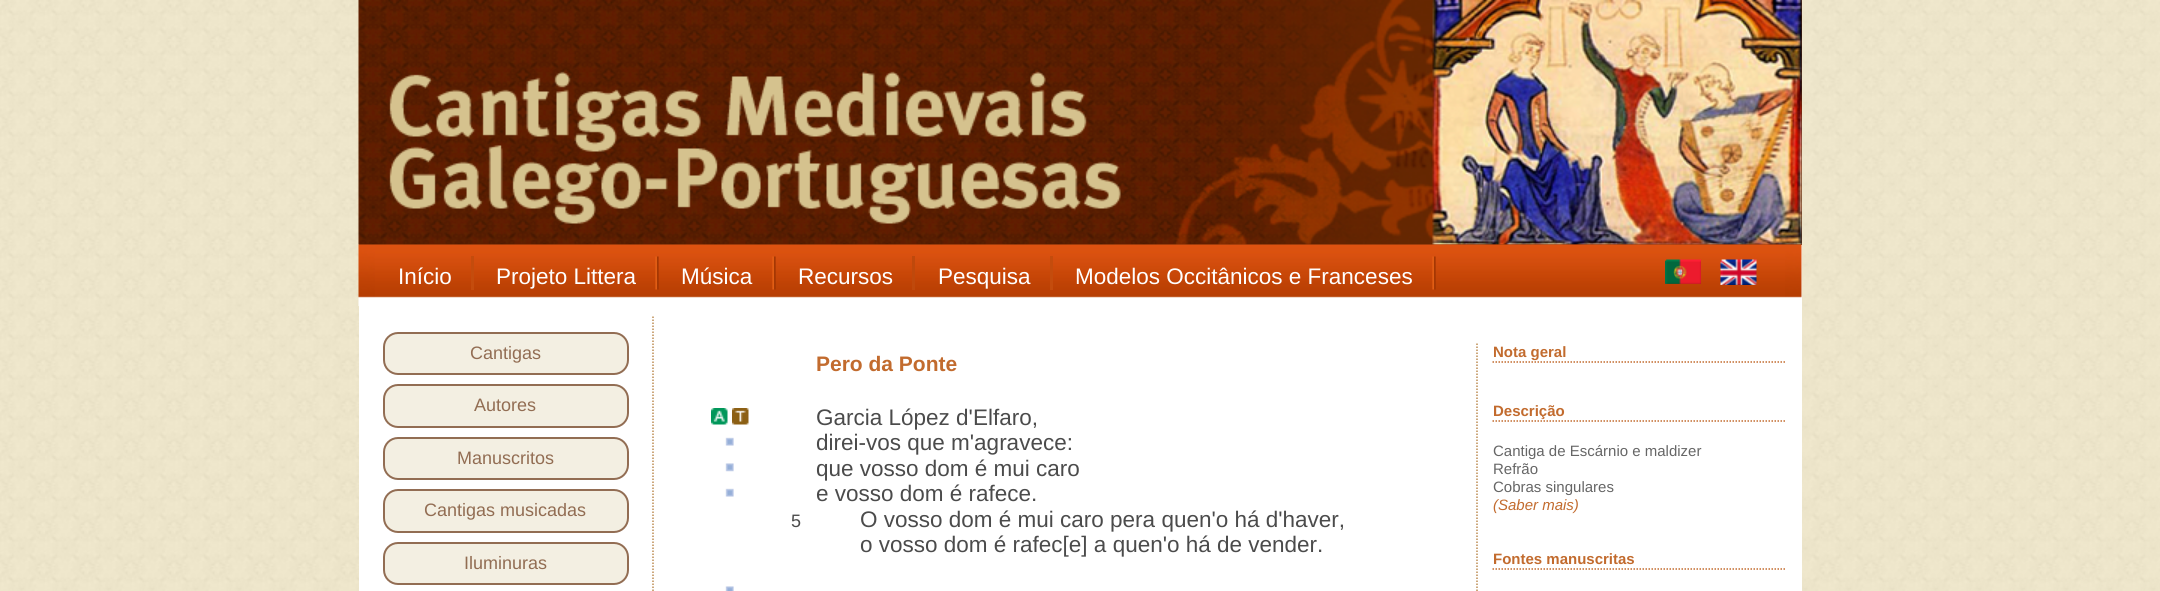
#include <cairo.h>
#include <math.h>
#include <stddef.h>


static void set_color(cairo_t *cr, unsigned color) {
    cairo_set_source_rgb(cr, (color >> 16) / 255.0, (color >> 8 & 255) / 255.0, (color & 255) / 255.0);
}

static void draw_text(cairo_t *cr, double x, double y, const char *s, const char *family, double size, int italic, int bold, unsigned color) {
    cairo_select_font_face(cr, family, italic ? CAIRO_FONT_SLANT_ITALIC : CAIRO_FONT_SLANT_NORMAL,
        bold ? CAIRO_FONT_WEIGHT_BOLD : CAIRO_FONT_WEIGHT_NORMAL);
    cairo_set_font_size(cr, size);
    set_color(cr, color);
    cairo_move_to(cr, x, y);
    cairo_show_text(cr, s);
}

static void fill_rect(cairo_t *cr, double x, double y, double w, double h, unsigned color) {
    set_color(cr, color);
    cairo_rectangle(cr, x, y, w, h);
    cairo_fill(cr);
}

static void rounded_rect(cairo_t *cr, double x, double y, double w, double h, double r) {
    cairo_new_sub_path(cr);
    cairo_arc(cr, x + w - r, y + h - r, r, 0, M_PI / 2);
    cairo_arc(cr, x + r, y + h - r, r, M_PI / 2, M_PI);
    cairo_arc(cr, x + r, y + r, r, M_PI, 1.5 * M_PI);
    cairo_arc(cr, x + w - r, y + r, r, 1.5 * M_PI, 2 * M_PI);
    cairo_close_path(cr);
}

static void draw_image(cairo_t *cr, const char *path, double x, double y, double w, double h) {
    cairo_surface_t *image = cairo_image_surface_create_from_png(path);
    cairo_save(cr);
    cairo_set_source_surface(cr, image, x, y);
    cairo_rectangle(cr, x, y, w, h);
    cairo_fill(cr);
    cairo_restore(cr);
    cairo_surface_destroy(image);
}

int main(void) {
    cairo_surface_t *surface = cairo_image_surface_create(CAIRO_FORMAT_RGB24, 2160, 591);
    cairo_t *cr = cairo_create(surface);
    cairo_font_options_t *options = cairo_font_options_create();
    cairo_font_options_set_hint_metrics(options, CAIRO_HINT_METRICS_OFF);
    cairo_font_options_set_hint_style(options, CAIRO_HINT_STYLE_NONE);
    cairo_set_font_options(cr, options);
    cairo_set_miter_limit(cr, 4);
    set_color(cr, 0xFFFFFF);
    cairo_paint(cr);
    draw_image(cr, "assets/img1.png", 0, 0, 2160, 591);
    fill_rect(cr, 359, 245, 1443, 346, 0xFFFFFF);
    fill_rect(cr, 359, 0, 1443, 245, 0x5C2B0D);
    draw_image(cr, "assets/img2.png", 358, 0, 1444, 245);
    draw_image(cr, "assets/img3.png", 358, 244, 17, 62);
    draw_image(cr, "assets/img4.png", 375, 244, 1290, 54);
    fill_rect(cr, 471, 256, 3, 34, 0xC44C0D);
    draw_text(cr, 398, 284, "Início", "Liberation Sans", 22.5, 0, 0, 0xFFFFFF);
    draw_image(cr, "assets/img5.png", 655, 256, 4, 34);
    draw_text(cr, 496, 284, "Projeto Littera", "Liberation Sans", 22.5, 0, 0, 0xFFFFFF);
    draw_image(cr, "assets/img5.png", 772, 256, 4, 34);
    draw_text(cr, 681, 284, "Música", "Liberation Sans", 22.5, 0, 0, 0xFFFFFF);
    fill_rect(cr, 912, 256, 3, 34, 0xBF490C);
    draw_text(cr, 798, 284, "Recursos", "Liberation Sans", 22.5, 0, 0, 0xFFFFFF);
    fill_rect(cr, 1050, 256, 3, 34, 0xC44C0D);
    draw_text(cr, 938, 284, "Pesquisa", "Liberation Sans", 22.5, 0, 0, 0xFFFFFF);
    draw_image(cr, "assets/img5.png", 1432, 256, 4, 34);
    draw_text(cr, 1075, 284, "Modelos Occitânicos e Franceses", "Liberation Sans", 22.5, 0, 0, 0xFFFFFF);
    draw_image(cr, "assets/img6.png", 1665, 244, 120, 54);
    draw_image(cr, "assets/img7.png", 1665, 259, 36, 25);
    draw_image(cr, "assets/img8.png", 1720, 259, 37, 26);
    draw_image(cr, "assets/img9.png", 1785, 244, 17, 54);
    cairo_new_path(cr);
    cairo_move_to(cr, 653, 316.5);
    cairo_line_to(cr, 653, 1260);
    set_color(cr, 0xBD8C53);
    cairo_set_line_width(cr, 1.5);
    cairo_set_dash(cr, (double[]){1.5, 1.5}, 2, 0);
    cairo_stroke(cr);
    set_color(cr, 0xF3EFE2);
    rounded_rect(cr, 384, 333, 244, 41, 14);
    cairo_fill_preserve(cr);
    set_color(cr, 0x926D53);
    cairo_set_line_width(cr, 2);
    cairo_set_dash(cr, NULL, 0, 0);
    cairo_stroke(cr);
    draw_text(cr, 470, 359, "Cantigas", "Liberation Sans", 18, 0, 0, 0x926D53);
    set_color(cr, 0xF3EFE2);
    rounded_rect(cr, 384, 385, 244, 42, 14);
    cairo_fill_preserve(cr);
    set_color(cr, 0x926D53);
    cairo_stroke(cr);
    draw_text(cr, 474, 411, "Autores", "Liberation Sans", 18, 0, 0, 0x926D53);
    set_color(cr, 0xF3EFE2);
    rounded_rect(cr, 384, 438, 244, 41, 14);
    cairo_fill_preserve(cr);
    set_color(cr, 0x926D53);
    cairo_stroke(cr);
    draw_text(cr, 457, 464, "Manuscritos", "Liberation Sans", 18, 0, 0, 0x926D53);
    set_color(cr, 0xF3EFE2);
    rounded_rect(cr, 384, 490, 244, 42, 14);
    cairo_fill_preserve(cr);
    set_color(cr, 0x926D53);
    cairo_stroke(cr);
    draw_text(cr, 424, 516, "Cantigas musicadas", "Liberation Sans", 18, 0, 0, 0x926D53);
    set_color(cr, 0xF3EFE2);
    rounded_rect(cr, 384, 543, 244, 41, 14);
    cairo_fill_preserve(cr);
    set_color(cr, 0x926D53);
    cairo_stroke(cr);
    draw_text(cr, 464, 569, "Iluminuras", "Liberation Sans", 18, 0, 0, 0x926D53);
    draw_text(cr, 816, 371, "Pero da Ponte", "Liberation Sans", 21, 0, 1, 0xC26B2E);
    draw_image(cr, "assets/img10.png", 711, 408, 17, 17);
    draw_image(cr, "assets/img11.png", 732, 408, 17, 17);
    draw_text(cr, 816, 425, "Garcia López d'Elfaro,", "Liberation Sans", 22.5, 0, 0, 0x4B4B4B);
    draw_image(cr, "assets/img12.png", 725, 437, 9, 9);
    draw_text(cr, 816, 450, "direi-vos que m'agravece:", "Liberation Sans", 22.5, 0, 0, 0x4B4B4B);
    draw_image(cr, "assets/img13.png", 725, 463, 9, 9);
    draw_text(cr, 816, 476, "que vosso dom é mui caro", "Liberation Sans", 22.5, 0, 0, 0x4B4B4B);
    draw_image(cr, "assets/img12.png", 725, 488, 9, 9);
    draw_text(cr, 816, 501, "e vosso dom é rafece.", "Liberation Sans", 22.5, 0, 0, 0x4B4B4B);
    draw_text(cr, 791, 527, "5", "Liberation Sans", 18, 0, 0, 0x4B4B4B);
    draw_text(cr, 860, 527, "O vosso dom é mui caro pera quen'o há d'haver,", "Liberation Sans", 22.5, 0, 0, 0x4B4B4B);
    draw_text(cr, 860, 552, "o vosso dom é rafec[e] a quen'o há de vender.", "Liberation Sans", 22.5, 0, 0, 0x4B4B4B);
    draw_image(cr, "assets/img14.png", 725, 586, 9, 5);
    cairo_new_path(cr);
    cairo_move_to(cr, 1477, 343.5);
    cairo_line_to(cr, 1477, 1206);
    set_color(cr, 0xBD8C53);
    cairo_set_line_width(cr, 1.5);
    cairo_set_dash(cr, (double[]){1.5, 1.5}, 2, 0);
    cairo_stroke(cr);
    draw_text(cr, 1493, 357, "Nota geral", "Liberation Sans", 15, 0, 1, 0xC26B2E);
    cairo_new_path(cr);
    cairo_move_to(cr, 1492.5, 362);
    cairo_line_to(cr, 1785, 362);
    cairo_stroke(cr);
    draw_text(cr, 1493, 416, "Descrição", "Liberation Sans", 15, 0, 1, 0xC26B2E);
    cairo_new_path(cr);
    cairo_move_to(cr, 1492.5, 421);
    cairo_line_to(cr, 1785, 421);
    cairo_stroke(cr);
    draw_text(cr, 1493, 456, "Cantiga de Escárnio e maldizer", "Liberation Sans", 15, 0, 0, 0x666666);
    draw_text(cr, 1493, 474, "Refrão", "Liberation Sans", 15, 0, 0, 0x666666);
    draw_text(cr, 1493, 492, "Cobras singulares", "Liberation Sans", 15, 0, 0, 0x666666);
    draw_text(cr, 1493, 510, "(Saber mais)", "Liberation Sans", 15, 1, 0, 0xC26B2E);
    draw_text(cr, 1493, 564, "Fontes manuscritas", "Liberation Sans", 15, 0, 1, 0xC26B2E);
    cairo_new_path(cr);
    cairo_move_to(cr, 1492.5, 569);
    cairo_line_to(cr, 1785, 569);
    cairo_stroke(cr);
    cairo_surface_write_to_png(surface, "output.png");
    cairo_font_options_destroy(options);
    cairo_destroy(cr);
    cairo_surface_destroy(surface);
    return 0;
}
